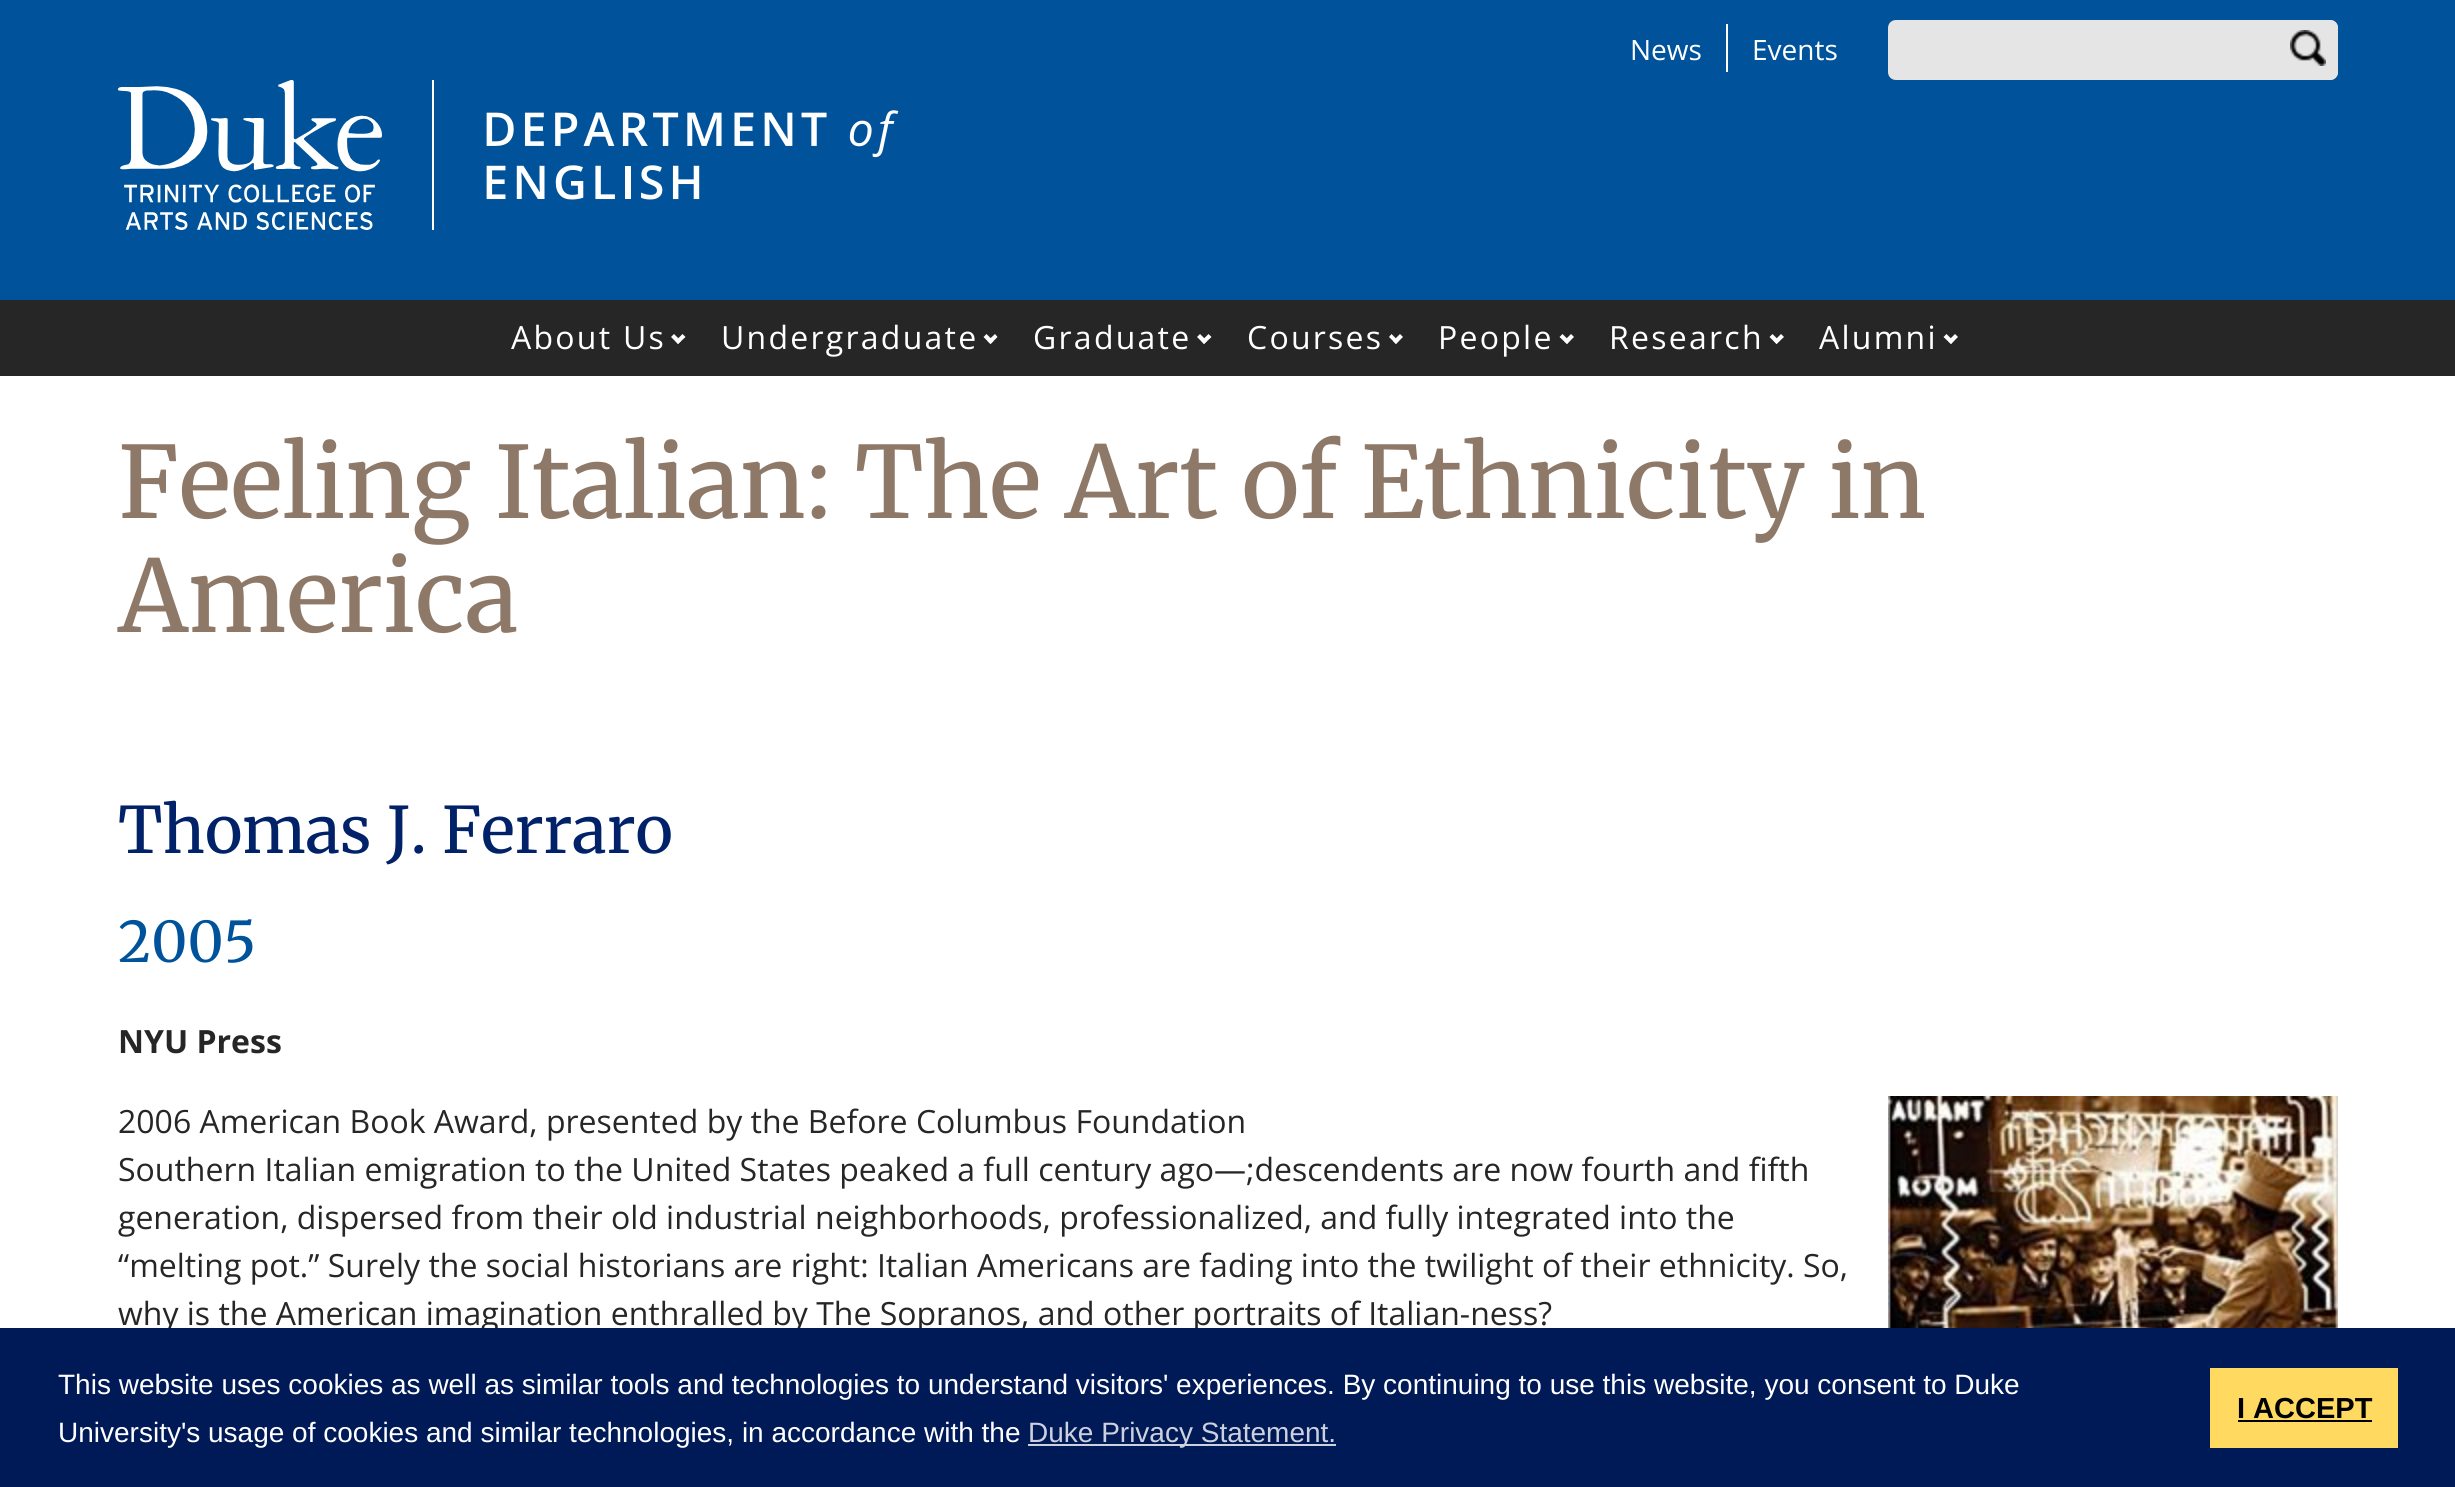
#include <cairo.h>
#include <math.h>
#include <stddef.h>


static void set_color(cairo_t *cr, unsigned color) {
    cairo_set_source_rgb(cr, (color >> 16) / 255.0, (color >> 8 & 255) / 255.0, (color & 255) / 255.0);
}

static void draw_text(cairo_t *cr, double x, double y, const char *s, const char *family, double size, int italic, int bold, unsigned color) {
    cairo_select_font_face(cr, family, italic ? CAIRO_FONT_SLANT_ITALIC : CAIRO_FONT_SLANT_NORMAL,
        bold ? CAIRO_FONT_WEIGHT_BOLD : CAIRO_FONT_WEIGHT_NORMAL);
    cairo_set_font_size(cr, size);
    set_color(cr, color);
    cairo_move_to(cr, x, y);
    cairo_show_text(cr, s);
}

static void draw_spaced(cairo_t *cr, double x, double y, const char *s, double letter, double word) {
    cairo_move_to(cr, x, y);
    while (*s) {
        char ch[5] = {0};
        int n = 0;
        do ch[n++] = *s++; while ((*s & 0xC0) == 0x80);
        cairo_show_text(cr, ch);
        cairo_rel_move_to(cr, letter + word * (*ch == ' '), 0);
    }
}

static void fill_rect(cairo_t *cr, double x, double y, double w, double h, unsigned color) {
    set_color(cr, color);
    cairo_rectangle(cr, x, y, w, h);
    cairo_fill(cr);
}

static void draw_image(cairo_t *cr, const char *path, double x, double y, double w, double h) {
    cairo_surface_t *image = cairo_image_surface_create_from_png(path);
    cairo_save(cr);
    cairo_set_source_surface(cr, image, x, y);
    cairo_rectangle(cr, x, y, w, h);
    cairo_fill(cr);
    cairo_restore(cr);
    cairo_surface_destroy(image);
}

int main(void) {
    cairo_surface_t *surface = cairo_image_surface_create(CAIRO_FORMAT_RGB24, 2455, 1487);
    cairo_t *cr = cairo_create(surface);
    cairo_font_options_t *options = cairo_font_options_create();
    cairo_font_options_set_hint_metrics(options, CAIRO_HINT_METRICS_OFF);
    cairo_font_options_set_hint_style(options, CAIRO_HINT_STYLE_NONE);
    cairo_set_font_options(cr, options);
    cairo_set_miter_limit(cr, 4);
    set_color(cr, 0xFFFFFF);
    cairo_paint(cr);
    fill_rect(cr, 0, 0, 2455, 300, 0x00539B);
    fill_rect(cr, 1726, 24, 2, 48, 0xFFFFFF);
    draw_text(cr, 1630, 60, "News", "Open Sans", 28, 0, 0, 0xFFFFFF);
    draw_text(cr, 1752, 60, "Events", "Open Sans", 28, 0, 0, 0xFFFFFF);
    set_color(cr, 0xE5E5E5);
    cairo_new_path(cr);
    cairo_move_to(cr, 1896, 21);
    cairo_line_to(cr, 2287, 21);
    cairo_line_to(cr, 2287, 79);
    cairo_line_to(cr, 1896, 79);
    cairo_curve_to(cr, 1892, 79, 1889, 76, 1889, 72);
    cairo_line_to(cr, 1889, 28);
    cairo_curve_to(cr, 1889, 24, 1892, 21, 1896, 21);
    cairo_close_path(cr);
    cairo_fill_preserve(cr);
    cairo_stroke(cr);
    cairo_new_path(cr);
    cairo_move_to(cr, 2278, 20);
    cairo_line_to(cr, 2330, 20);
    cairo_curve_to(cr, 2334.5, 20, 2338, 23.5, 2338, 28);
    cairo_line_to(cr, 2338, 72);
    cairo_curve_to(cr, 2338, 76.5, 2334.5, 80, 2330, 80);
    cairo_line_to(cr, 2278, 80);
    cairo_close_path(cr);
    cairo_fill(cr);
    draw_image(cr, "assets/img1.png", 2290, 30, 36, 36);
    cairo_new_path(cr);
    cairo_move_to(cr, 2279, 21);
    cairo_line_to(cr, 2330, 21);
    cairo_curve_to(cr, 2334, 21, 2337, 24, 2337, 28);
    cairo_line_to(cr, 2337, 72);
    cairo_curve_to(cr, 2337, 76, 2334, 79, 2330, 79);
    cairo_line_to(cr, 2279, 79);
    cairo_close_path(cr);
    cairo_stroke(cr);
    fill_rect(cr, 432, 80, 2, 150, 0xFFFFFF);
    draw_image(cr, "assets/img2.png", 118, 80, 264, 150);
    draw_image(cr, "assets/img3.png", 486, 110, 413, 90);
    fill_rect(cr, 0, 300, 2455, 76, 0x262626);
    cairo_set_font_size(cr, 32);
    set_color(cr, 0xFFFFFF);
    draw_spaced(cr, 511, 349, "About Us", 2.25, 0);
    cairo_new_path(cr);
    cairo_move_to(cr, 682.5, 334);
    cairo_line_to(cr, 685.5, 337);
    cairo_line_to(cr, 678, 344);
    cairo_line_to(cr, 675.5, 341);
    cairo_close_path(cr);
    cairo_fill(cr);
    cairo_new_path(cr);
    cairo_move_to(cr, 674, 334);
    cairo_line_to(cr, 681, 341);
    cairo_line_to(cr, 678, 344);
    cairo_line_to(cr, 671, 337);
    cairo_close_path(cr);
    cairo_fill(cr);
    draw_spaced(cr, 721, 349, "Undergraduate", 2.25, 0);
    cairo_new_path(cr);
    cairo_move_to(cr, 995, 334);
    cairo_line_to(cr, 997.5, 337);
    cairo_line_to(cr, 990.5, 344);
    cairo_line_to(cr, 987.5, 341);
    cairo_close_path(cr);
    cairo_fill(cr);
    cairo_new_path(cr);
    cairo_move_to(cr, 986.5, 334);
    cairo_line_to(cr, 993.5, 341);
    cairo_line_to(cr, 990.5, 344);
    cairo_line_to(cr, 983.5, 337);
    cairo_close_path(cr);
    cairo_fill(cr);
    draw_spaced(cr, 1033, 349, "Graduate", 2.25, 0);
    cairo_new_path(cr);
    cairo_move_to(cr, 1208.5, 334);
    cairo_line_to(cr, 1211.5, 337);
    cairo_line_to(cr, 1204, 344);
    cairo_line_to(cr, 1201.5, 341);
    cairo_close_path(cr);
    cairo_fill(cr);
    cairo_new_path(cr);
    cairo_move_to(cr, 1200, 334);
    cairo_line_to(cr, 1207, 341);
    cairo_line_to(cr, 1204, 344);
    cairo_line_to(cr, 1197, 337);
    cairo_close_path(cr);
    cairo_fill(cr);
    draw_spaced(cr, 1247, 349, "Courses", 2.25, 0);
    cairo_new_path(cr);
    cairo_move_to(cr, 1400, 334);
    cairo_line_to(cr, 1403, 337);
    cairo_line_to(cr, 1396, 344);
    cairo_line_to(cr, 1393, 341);
    cairo_close_path(cr);
    cairo_fill(cr);
    cairo_new_path(cr);
    cairo_move_to(cr, 1391.5, 334);
    cairo_line_to(cr, 1398.5, 341);
    cairo_line_to(cr, 1396, 344);
    cairo_line_to(cr, 1389, 337);
    cairo_close_path(cr);
    cairo_fill(cr);
    draw_spaced(cr, 1438, 349, "People", 2.25, 0);
    cairo_new_path(cr);
    cairo_move_to(cr, 1571, 334);
    cairo_line_to(cr, 1574, 337);
    cairo_line_to(cr, 1567, 344);
    cairo_line_to(cr, 1564, 341);
    cairo_close_path(cr);
    cairo_fill(cr);
    cairo_new_path(cr);
    cairo_move_to(cr, 1562.5, 334);
    cairo_line_to(cr, 1569.5, 341);
    cairo_line_to(cr, 1567, 344);
    cairo_line_to(cr, 1559.5, 337);
    cairo_close_path(cr);
    cairo_fill(cr);
    draw_spaced(cr, 1609, 349, "Research", 2.25, 0);
    cairo_new_path(cr);
    cairo_move_to(cr, 1781, 334);
    cairo_line_to(cr, 1784, 337);
    cairo_line_to(cr, 1776.5, 344);
    cairo_line_to(cr, 1774, 341);
    cairo_close_path(cr);
    cairo_fill(cr);
    cairo_new_path(cr);
    cairo_move_to(cr, 1772.5, 334);
    cairo_line_to(cr, 1779.5, 341);
    cairo_line_to(cr, 1776.5, 344);
    cairo_line_to(cr, 1769.5, 337);
    cairo_close_path(cr);
    cairo_fill(cr);
    draw_spaced(cr, 1819, 349, "Alumni", 2.25, 0);
    cairo_new_path(cr);
    cairo_move_to(cr, 1955, 334);
    cairo_line_to(cr, 1958, 337);
    cairo_line_to(cr, 1951, 344);
    cairo_line_to(cr, 1948, 341);
    cairo_close_path(cr);
    cairo_fill(cr);
    cairo_new_path(cr);
    cairo_move_to(cr, 1946.5, 334);
    cairo_line_to(cr, 1953.5, 341);
    cairo_line_to(cr, 1951, 344);
    cairo_line_to(cr, 1943.5, 337);
    cairo_close_path(cr);
    cairo_fill(cr);
    draw_text(cr, 118, 518, "Feeling Italian: The Art of Ethnicity in", "Merriweather", 99.25, 0, 0, 0x8E7969);
    draw_text(cr, 118, 632, "America", "Merriweather", 99.25, 0, 0, 0x8E7969);
    draw_text(cr, 118, 853, "Thomas J. Ferraro", "Merriweather", 64, 0, 0, 0x012169);
    draw_text(cr, 118, 962, "2005", "Merriweather", 56, 0, 0, 0x00539B);
    draw_text(cr, 118, 1053, "NYU Press", "Open Sans", 32, 0, 1, 0x262626);
    draw_text(cr, 118, 1133, "2006 American Book Award, presented by the Before Columbus Foundation", "Open Sans", 32, 0, 0, 0x262626);
    draw_text(cr, 118, 1181, "Southern Italian emigration to the United States peaked a full century ago—;descendents are now fourth and fifth", "Open Sans", 32, 0, 0, 0x262626);
    draw_text(cr, 118, 1229, "generation, dispersed from their old industrial neighborhoods, professionalized, and fully integrated into the", "Open Sans", 32, 0, 0, 0x262626);
    draw_text(cr, 118, 1277, "“melting pot.” Surely the social historians are right: Italian Americans are fading into the twilight of their ethnicity. So,", "Open Sans", 32, 0, 0, 0x262626);
    draw_text(cr, 118, 1325, "why is the American imagination enthralled by The Sopranos, and other portraits of Italian-ness?", "Open Sans", 32, 0, 0, 0x262626);
    draw_image(cr, "assets/img4.png", 1888, 1096, 450, 232);
    fill_rect(cr, 0, 1328, 2455, 159, 0x001A57);
    draw_text(cr, 58, 1394, "This website uses cookies as well as similar tools and technologies to understand visitors' experiences. By continuing to use this website, you consent to Duke", "Liberation Sans", 28, 0, 0, 0xFFFFFF);
    draw_text(cr, 58, 1442, "University's usage of cookies and similar technologies, in accordance with the", "Liberation Sans", 28, 0, 0, 0xFFFFFF);
    fill_rect(cr, 1028, 1444, 308, 2, 0xCCD1DD);
    draw_text(cr, 1028, 1442, "Duke Privacy Statement.", "Liberation Sans", 28, 0, 0, 0xCCD1DD);
    fill_rect(cr, 2210, 1368, 188, 80, 0xFFD960);
    draw_text(cr, 2237, 1418, "I ACCEPT", "Liberation Sans", 29, 0, 1, 0x000000);
    fill_rect(cr, 2238, 1420, 134, 2, 0x000000);
    cairo_surface_write_to_png(surface, "output.png");
    cairo_font_options_destroy(options);
    cairo_destroy(cr);
    cairo_surface_destroy(surface);
    return 0;
}
